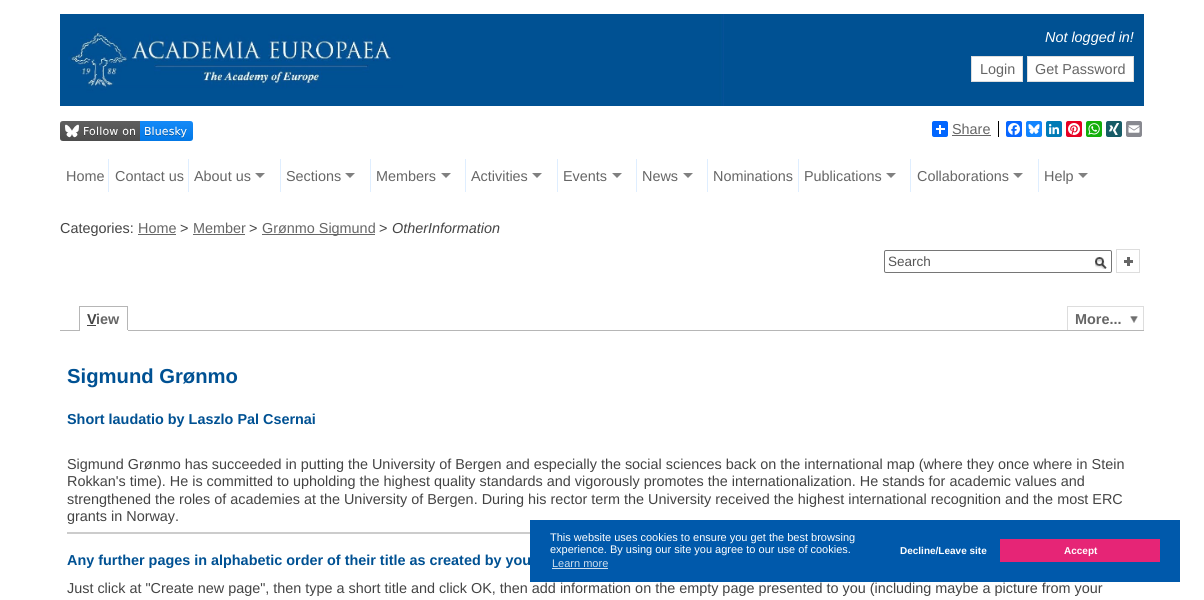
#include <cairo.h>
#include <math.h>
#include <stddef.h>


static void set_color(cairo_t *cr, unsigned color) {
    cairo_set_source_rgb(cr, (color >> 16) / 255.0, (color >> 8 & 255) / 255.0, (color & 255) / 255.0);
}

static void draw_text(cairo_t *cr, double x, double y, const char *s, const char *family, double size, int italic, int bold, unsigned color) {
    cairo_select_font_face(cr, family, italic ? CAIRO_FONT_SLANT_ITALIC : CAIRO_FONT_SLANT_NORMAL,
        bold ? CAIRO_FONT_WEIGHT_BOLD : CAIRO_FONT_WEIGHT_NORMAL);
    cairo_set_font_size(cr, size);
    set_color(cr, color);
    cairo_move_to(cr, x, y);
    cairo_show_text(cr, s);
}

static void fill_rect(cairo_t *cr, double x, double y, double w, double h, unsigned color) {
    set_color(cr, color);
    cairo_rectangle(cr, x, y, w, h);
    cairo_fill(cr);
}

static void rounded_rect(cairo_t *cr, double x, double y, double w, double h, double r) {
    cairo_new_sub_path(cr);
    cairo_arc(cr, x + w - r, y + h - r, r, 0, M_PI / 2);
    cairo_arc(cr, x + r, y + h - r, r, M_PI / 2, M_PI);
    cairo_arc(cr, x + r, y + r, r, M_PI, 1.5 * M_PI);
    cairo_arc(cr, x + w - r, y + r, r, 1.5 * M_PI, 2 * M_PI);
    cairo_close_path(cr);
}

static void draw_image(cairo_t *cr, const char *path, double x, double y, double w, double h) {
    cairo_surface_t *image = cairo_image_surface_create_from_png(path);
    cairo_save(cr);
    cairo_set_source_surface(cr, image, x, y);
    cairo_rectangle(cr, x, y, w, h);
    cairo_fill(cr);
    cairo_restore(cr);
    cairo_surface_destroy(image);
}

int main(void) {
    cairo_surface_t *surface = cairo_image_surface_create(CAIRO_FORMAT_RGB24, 1204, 600);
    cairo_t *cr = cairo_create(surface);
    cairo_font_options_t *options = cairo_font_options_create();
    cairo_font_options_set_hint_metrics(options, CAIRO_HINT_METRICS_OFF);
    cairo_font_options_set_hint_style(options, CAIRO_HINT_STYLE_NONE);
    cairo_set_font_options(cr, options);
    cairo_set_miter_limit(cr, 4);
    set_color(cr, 0xFFFFFF);
    cairo_paint(cr);
    fill_rect(cr, 60, 14, 1084, 92, 0x005193);
    draw_image(cr, "assets/img1.png", 68, 14, 656, 92);
    draw_text(cr, 1045, 42, "Not logged in!", "Liberation Sans", 14.4, 1, 0, 0xFFFFFF);
    cairo_rectangle(cr, 971.5, 56.5, 51, 25);
    cairo_fill_preserve(cr);
    set_color(cr, 0xDDDDDD);
    cairo_set_line_width(cr, 1);
    cairo_stroke(cr);
    draw_text(cr, 980, 74, "Login", "Liberation Sans", 14.4, 0, 0, 0x666666);
    set_color(cr, 0xFFFFFF);
    cairo_rectangle(cr, 1027.5, 56.5, 106, 25);
    cairo_fill_preserve(cr);
    set_color(cr, 0xDDDDDD);
    cairo_stroke(cr);
    draw_text(cr, 1035, 74, "Get Password", "Liberation Sans", 14.4, 0, 0, 0x666666);
    draw_image(cr, "assets/img2.png", 60, 121, 133, 20);
    set_color(cr, 0x0166FF);
    rounded_rect(cr, 932, 121, 16, 16, 2);
    cairo_fill(cr);
    fill_rect(cr, 939, 125, 2, 9, 0xFFFFFF);
    fill_rect(cr, 936, 128, 9, 2, 0xFFFFFF);
    draw_text(cr, 952, 134, "Share", "Liberation Sans", 14.4, 0, 0, 0x666666);
    fill_rect(cr, 952, 135, 39, 1, 0x666666);
    fill_rect(cr, 998, 121, 1, 16, 0x000000);
    set_color(cr, 0x0866FF);
    rounded_rect(cr, 1006, 121, 16, 16, 2);
    cairo_fill(cr);
    draw_image(cr, "assets/img3.png", 1008, 123, 12, 12);
    set_color(cr, 0x1285FE);
    rounded_rect(cr, 1026, 121, 16, 16, 2);
    cairo_fill(cr);
    draw_image(cr, "assets/img4.png", 1028, 124, 12, 10);
    set_color(cr, 0x007BB5);
    rounded_rect(cr, 1046, 121, 16, 16, 2);
    cairo_fill(cr);
    draw_image(cr, "assets/img5.png", 1049, 124, 11, 11);
    set_color(cr, 0xE60023);
    rounded_rect(cr, 1066, 121, 16, 16, 2);
    cairo_fill(cr);
    draw_image(cr, "assets/img6.png", 1068, 123, 12, 12);
    set_color(cr, 0x12AF0A);
    rounded_rect(cr, 1086, 121, 16, 16, 2);
    cairo_fill(cr);
    draw_image(cr, "assets/img7.png", 1088, 123, 12, 12);
    set_color(cr, 0x165B66);
    rounded_rect(cr, 1106, 121, 16, 16, 2);
    cairo_fill(cr);
    draw_image(cr, "assets/img8.png", 1108, 123, 12, 12);
    set_color(cr, 0x888990);
    rounded_rect(cr, 1126, 121, 16, 16, 2);
    cairo_fill(cr);
    draw_image(cr, "assets/img9.png", 1128, 125, 12, 8);
    fill_rect(cr, 108, 159, 1, 33, 0xDFEEFF);
    draw_text(cr, 66, 181, "Home", "Liberation Sans", 14.4, 0, 0, 0x666666);
    fill_rect(cr, 188, 159, 1, 33, 0xDFEEFF);
    draw_text(cr, 115, 181, "Contact us", "Liberation Sans", 14.4, 0, 0, 0x666666);
    fill_rect(cr, 280, 159, 1, 33, 0xDFEEFF);
    draw_text(cr, 194, 181, "About us", "Liberation Sans", 14.4, 0, 0, 0x666666);
    set_color(cr, 0x808080);
    cairo_new_path(cr);
    cairo_move_to(cr, 255, 173);
    cairo_line_to(cr, 265, 173);
    cairo_line_to(cr, 260, 178);
    cairo_close_path(cr);
    cairo_fill(cr);
    fill_rect(cr, 370, 159, 1, 33, 0xDFEEFF);
    draw_text(cr, 286, 181, "Sections", "Liberation Sans", 14.4, 0, 0, 0x666666);
    set_color(cr, 0x808080);
    cairo_new_path(cr);
    cairo_move_to(cr, 345, 173);
    cairo_line_to(cr, 355, 173);
    cairo_line_to(cr, 350, 178);
    cairo_close_path(cr);
    cairo_fill(cr);
    fill_rect(cr, 465, 159, 1, 33, 0xDFEEFF);
    draw_text(cr, 376, 181, "Members", "Liberation Sans", 14.4, 0, 0, 0x666666);
    set_color(cr, 0x808080);
    cairo_new_path(cr);
    cairo_move_to(cr, 441, 173);
    cairo_line_to(cr, 451, 173);
    cairo_line_to(cr, 446, 178);
    cairo_close_path(cr);
    cairo_fill(cr);
    fill_rect(cr, 557, 159, 1, 33, 0xDFEEFF);
    draw_text(cr, 471, 181, "Activities", "Liberation Sans", 14.4, 0, 0, 0x666666);
    set_color(cr, 0x808080);
    cairo_new_path(cr);
    cairo_move_to(cr, 532, 173);
    cairo_line_to(cr, 542, 173);
    cairo_line_to(cr, 537, 178);
    cairo_close_path(cr);
    cairo_fill(cr);
    fill_rect(cr, 636, 159, 1, 33, 0xDFEEFF);
    draw_text(cr, 563, 181, "Events", "Liberation Sans", 14.4, 0, 0, 0x666666);
    set_color(cr, 0x808080);
    cairo_new_path(cr);
    cairo_move_to(cr, 612, 173);
    cairo_line_to(cr, 622, 173);
    cairo_line_to(cr, 617, 178);
    cairo_close_path(cr);
    cairo_fill(cr);
    fill_rect(cr, 707, 159, 1, 33, 0xDFEEFF);
    draw_text(cr, 642, 181, "News", "Liberation Sans", 14.4, 0, 0, 0x666666);
    set_color(cr, 0x808080);
    cairo_new_path(cr);
    cairo_move_to(cr, 683, 173);
    cairo_line_to(cr, 693, 173);
    cairo_line_to(cr, 688, 178);
    cairo_close_path(cr);
    cairo_fill(cr);
    fill_rect(cr, 798, 159, 1, 33, 0xDFEEFF);
    draw_text(cr, 713, 181, "Nominations", "Liberation Sans", 14.4, 0, 0, 0x666666);
    fill_rect(cr, 910, 159, 1, 33, 0xDFEEFF);
    draw_text(cr, 804, 181, "Publications", "Liberation Sans", 14.4, 0, 0, 0x666666);
    set_color(cr, 0x808080);
    cairo_new_path(cr);
    cairo_move_to(cr, 886, 173);
    cairo_line_to(cr, 896, 173);
    cairo_line_to(cr, 891, 178);
    cairo_close_path(cr);
    cairo_fill(cr);
    fill_rect(cr, 1038, 159, 1, 33, 0xDFEEFF);
    draw_text(cr, 917, 181, "Collaborations", "Liberation Sans", 14.4, 0, 0, 0x666666);
    set_color(cr, 0x808080);
    cairo_new_path(cr);
    cairo_move_to(cr, 1013, 173);
    cairo_line_to(cr, 1023, 173);
    cairo_line_to(cr, 1018, 178);
    cairo_close_path(cr);
    cairo_fill(cr);
    draw_text(cr, 1044, 181, "Help", "Liberation Sans", 14.4, 0, 0, 0x666666);
    set_color(cr, 0x808080);
    cairo_new_path(cr);
    cairo_move_to(cr, 1078, 173);
    cairo_line_to(cr, 1088, 173);
    cairo_line_to(cr, 1083, 178);
    cairo_close_path(cr);
    cairo_fill(cr);
    draw_text(cr, 60, 233, "Categories:", "Liberation Sans", 14.4, 0, 0, 0x444444);
    draw_text(cr, 138, 233, "Home", "Liberation Sans", 14.4, 0, 0, 0x666666);
    fill_rect(cr, 138, 234, 38, 1, 0x666666);
    draw_text(cr, 180, 233, ">", "Liberation Sans", 14.4, 0, 0, 0x444444);
    draw_text(cr, 193, 233, "Member", "Liberation Sans", 14.4, 0, 0, 0x666666);
    fill_rect(cr, 193, 234, 52, 1, 0x666666);
    draw_text(cr, 249, 233, ">", "Liberation Sans", 14.4, 0, 0, 0x444444);
    fill_rect(cr, 262, 234, 113, 1, 0x666666);
    draw_text(cr, 262, 233, "Grønmo Sigmund", "Liberation Sans", 14.4, 0, 0, 0x666666);
    draw_text(cr, 379, 233, ">", "Liberation Sans", 14.4, 0, 0, 0x444444);
    draw_text(cr, 392, 233, "OtherInformation", "Liberation Sans", 14.4, 1, 0, 0x444444);
    rounded_rect(cr, 884.5, 250.5, 227, 22, 1.5);
    set_color(cr, 0x767676);
    cairo_stroke(cr);
    draw_text(cr, 888, 266, "Search", "Liberation Sans", 13.5, 0, 0, 0x555555);
    draw_image(cr, "assets/img10.png", 1095, 257, 12, 12);
    cairo_rectangle(cr, 1116.5, 249.5, 23, 23);
    set_color(cr, 0xDDDDDD);
    cairo_stroke(cr);
    draw_image(cr, "assets/img11.png", 1124, 257, 9, 9);
    fill_rect(cr, 79, 306, 49, 1, 0xB6B6B6);
    fill_rect(cr, 60, 330, 1084, 1, 0xB6B6B6);
    fill_rect(cr, 127, 306, 1, 25, 0xB6B6B6);
    fill_rect(cr, 79, 330, 49, 1, 0xFFFFFF);
    fill_rect(cr, 79, 306, 1, 25, 0xB6B6B6);
    draw_text(cr, 87, 324, "V", "Liberation Sans", 14.4, 0, 1, 0x444444);
    fill_rect(cr, 87, 325, 9, 1, 0x444444);
    draw_text(cr, 96, 324, "iew", "Liberation Sans", 14.4, 0, 1, 0x666666);
    draw_image(cr, "assets/img12.png", 1130, 316, 8, 7);
    fill_rect(cr, 1067, 306, 77, 1, 0xDDDDDD);
    fill_rect(cr, 1143, 306, 1, 24, 0xDDDDDD);
    fill_rect(cr, 1067, 306, 1, 24, 0xDDDDDD);
    draw_text(cr, 1075, 324, "More...", "Liberation Sans", 14.4, 0, 1, 0x666666);
    draw_text(cr, 67, 383, "Sigmund Grønmo", "Liberation Sans", 20.25, 0, 1, 0x005193);
    draw_text(cr, 67, 424, "Short laudatio by Laszlo Pal Csernai", "Liberation Sans", 14.4, 0, 1, 0x005193);
    draw_text(cr, 67, 469, "Sigmund Grønmo has succeeded in putting the University of Bergen and especially the social sciences back on the international map (where they once where in Stein", "Liberation Sans", 14.4, 0, 0, 0x444444);
    draw_text(cr, 67, 486, "Rokkan's time). He is committed to upholding the highest quality standards and vigorously promotes the internationalization. He stands for academic values and", "Liberation Sans", 14.4, 0, 0, 0x444444);
    draw_text(cr, 67, 504, "strengthened the roles of academies at the University of Bergen. During his rector term the University received the highest international recognition and the most ERC", "Liberation Sans", 14.4, 0, 0, 0x444444);
    draw_text(cr, 67, 521, "grants in Norway.", "Liberation Sans", 14.4, 0, 0, 0x444444);
    fill_rect(cr, 67, 532, 463, 2, 0xCCCCCC);
    draw_text(cr, 67, 565, "Any further pages in alphabetic order of their title as created by you", "Liberation Sans", 14.4, 0, 1, 0x005193);
    draw_text(cr, 67, 593, "Just click at \"Create new page\", then type a short title and click OK, then add information on the empty page presented to you (including maybe a picture from your", "Liberation Sans", 14.4, 0, 0, 0x444444);
    fill_rect(cr, 530, 520, 650, 62, 0x0059AB);
    draw_text(cr, 550, 541, "This website uses cookies to ensure you get the best browsing", "Liberation Sans", 11, 0, 0, 0xFFFFFF);
    draw_text(cr, 550, 553, "experience. By using our site you agree to our use of cookies.", "Liberation Sans", 11, 0, 0, 0xFFFFFF);
    draw_text(cr, 552, 567, "Learn more", "Liberation Sans", 11, 0, 0, 0xCCDEEE);
    fill_rect(cr, 552, 568, 56, 1, 0xCCDEEE);
    draw_text(cr, 900, 554, "Decline/Leave site", "Liberation Sans", 10, 0, 1, 0xFFFFFF);
    fill_rect(cr, 1000, 539, 160, 23, 0xE62576);
    draw_text(cr, 1064, 554, "Accept", "Liberation Sans", 10, 0, 1, 0xFFFFFF);
    cairo_surface_write_to_png(surface, "output.png");
    cairo_font_options_destroy(options);
    cairo_destroy(cr);
    cairo_surface_destroy(surface);
    return 0;
}
